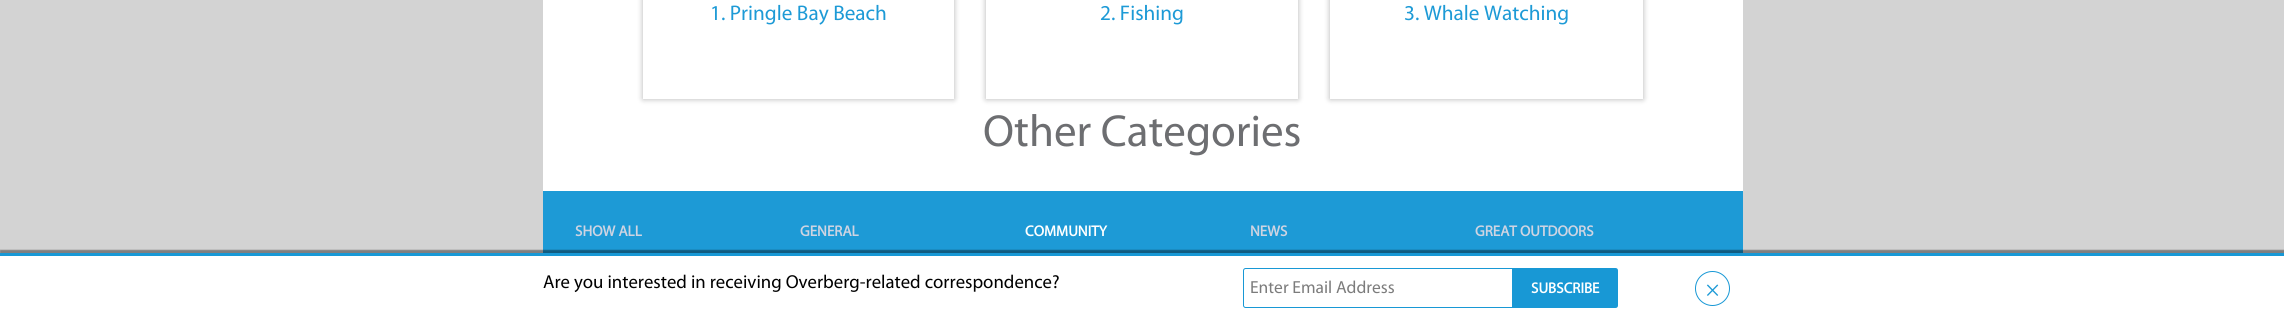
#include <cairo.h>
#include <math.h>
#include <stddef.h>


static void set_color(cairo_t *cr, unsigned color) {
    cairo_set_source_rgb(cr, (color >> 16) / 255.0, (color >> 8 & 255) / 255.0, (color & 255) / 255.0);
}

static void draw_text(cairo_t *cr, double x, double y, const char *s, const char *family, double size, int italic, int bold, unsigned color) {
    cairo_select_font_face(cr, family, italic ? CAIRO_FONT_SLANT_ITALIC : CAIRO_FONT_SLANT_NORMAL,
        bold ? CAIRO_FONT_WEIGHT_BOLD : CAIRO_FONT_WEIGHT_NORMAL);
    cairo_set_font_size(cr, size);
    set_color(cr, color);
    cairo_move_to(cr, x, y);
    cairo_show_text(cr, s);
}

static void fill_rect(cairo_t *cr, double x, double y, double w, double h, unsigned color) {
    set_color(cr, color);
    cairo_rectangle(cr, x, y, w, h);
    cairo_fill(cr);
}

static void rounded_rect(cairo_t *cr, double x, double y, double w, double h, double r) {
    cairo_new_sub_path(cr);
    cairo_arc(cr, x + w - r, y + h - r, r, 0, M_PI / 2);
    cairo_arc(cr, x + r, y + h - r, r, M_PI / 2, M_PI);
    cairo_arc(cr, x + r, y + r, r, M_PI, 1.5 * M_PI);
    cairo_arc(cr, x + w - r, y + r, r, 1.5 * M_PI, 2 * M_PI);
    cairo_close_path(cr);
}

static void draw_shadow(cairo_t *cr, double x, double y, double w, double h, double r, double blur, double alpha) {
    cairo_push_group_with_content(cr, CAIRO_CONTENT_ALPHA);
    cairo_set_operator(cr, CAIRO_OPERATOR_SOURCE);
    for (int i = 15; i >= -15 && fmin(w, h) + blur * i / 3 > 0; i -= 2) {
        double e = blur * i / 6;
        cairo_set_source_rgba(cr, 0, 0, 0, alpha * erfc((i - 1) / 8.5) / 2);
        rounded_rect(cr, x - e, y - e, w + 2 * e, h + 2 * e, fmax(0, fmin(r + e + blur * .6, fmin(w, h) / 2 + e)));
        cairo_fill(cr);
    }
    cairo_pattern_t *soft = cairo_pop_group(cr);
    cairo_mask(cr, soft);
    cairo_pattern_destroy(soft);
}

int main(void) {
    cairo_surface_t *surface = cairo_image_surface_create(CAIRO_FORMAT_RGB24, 2284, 319);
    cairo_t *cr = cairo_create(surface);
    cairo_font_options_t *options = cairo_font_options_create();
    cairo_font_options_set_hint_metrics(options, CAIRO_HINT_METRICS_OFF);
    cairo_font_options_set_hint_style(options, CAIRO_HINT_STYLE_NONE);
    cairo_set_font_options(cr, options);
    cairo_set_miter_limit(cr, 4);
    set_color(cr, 0xD3D3D3);
    cairo_paint(cr);
    fill_rect(cr, 543, 0, 1200, 191, 0xFFFFFF);
    cairo_save(cr);
    cairo_set_fill_rule(cr, CAIRO_FILL_RULE_EVEN_ODD);
    cairo_new_path(cr);
    cairo_move_to(cr, 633, 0);
    cairo_line_to(cr, 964, 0);
    cairo_line_to(cr, 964, 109);
    cairo_line_to(cr, 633, 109);
    cairo_close_path(cr);
    cairo_move_to(cr, 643, -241);
    cairo_line_to(cr, 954, -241);
    cairo_line_to(cr, 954, 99);
    cairo_line_to(cr, 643, 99);
    cairo_close_path(cr);
    cairo_clip(cr);
    set_color(cr, 0x000000);
    draw_shadow(cr, 643, -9, 311, 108, 0, 3, 0.3);
    cairo_restore(cr);
    draw_text(cr, 710, 20, "1. Pringle Bay Beach", "Myriad", 21.25, 0, 0, 0x1D9AD6);
    cairo_save(cr);
    cairo_set_fill_rule(cr, CAIRO_FILL_RULE_EVEN_ODD);
    cairo_new_path(cr);
    cairo_move_to(cr, 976, 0);
    cairo_line_to(cr, 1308, 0);
    cairo_line_to(cr, 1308, 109);
    cairo_line_to(cr, 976, 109);
    cairo_close_path(cr);
    cairo_move_to(cr, 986, -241);
    cairo_line_to(cr, 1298, -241);
    cairo_line_to(cr, 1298, 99);
    cairo_line_to(cr, 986, 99);
    cairo_close_path(cr);
    cairo_clip(cr);
    set_color(cr, 0x000000);
    draw_shadow(cr, 986, -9, 312, 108, 0, 3, 0.3);
    cairo_restore(cr);
    draw_text(cr, 1100, 20, "2. Fishing", "Myriad", 21.25, 0, 0, 0x1D9AD6);
    cairo_save(cr);
    cairo_set_fill_rule(cr, CAIRO_FILL_RULE_EVEN_ODD);
    cairo_new_path(cr);
    cairo_move_to(cr, 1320, 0);
    cairo_line_to(cr, 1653, 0);
    cairo_line_to(cr, 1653, 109);
    cairo_line_to(cr, 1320, 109);
    cairo_close_path(cr);
    cairo_move_to(cr, 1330, -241);
    cairo_line_to(cr, 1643, -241);
    cairo_line_to(cr, 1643, 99);
    cairo_line_to(cr, 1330, 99);
    cairo_close_path(cr);
    cairo_clip(cr);
    set_color(cr, 0x000000);
    draw_shadow(cr, 1330, -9, 313, 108, 0, 3, 0.3);
    cairo_restore(cr);
    draw_text(cr, 1404, 20, "3. Whale Watching", "Myriad", 21.25, 0, 0, 0x1D9AD6);
    draw_text(cr, 983, 146, "Other Categories", "Myriad", 45, 0, 0, 0x6D6E71);
    fill_rect(cr, 543, 191, 1200, 62, 0x1D9AD6);
    draw_text(cr, 575, 236, "SHOW ALL", "Myriad", 15, 0, 1, 0xCFD4E2);
    draw_text(cr, 800, 236, "GENERAL", "Myriad", 15, 0, 1, 0xCFD4E2);
    draw_text(cr, 1025, 236, "COMMUNITY", "Myriad", 15, 0, 1, 0xFFFFFF);
    draw_text(cr, 1250, 236, "NEWS", "Myriad", 15, 0, 1, 0xCFD4E2);
    draw_text(cr, 1475, 236, "GREAT OUTDOORS", "Myriad", 15, 0, 1, 0xCFD4E2);
    set_color(cr, 0x000000);
    draw_shadow(cr, 0, 250, 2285, 68, 0, 0.5, 0.4);
    fill_rect(cr, 0, 256, 2284, 63, 0xFFFFFF);
    fill_rect(cr, 0, 253, 2284, 3, 0x1898D5);
    draw_text(cr, 543, 288, "Are you interested in receiving Overberg-related correspondence?", "Myriad", 18.75, 0, 0, 0x000000);
    cairo_new_path(cr);
    cairo_move_to(cr, 1245.5, 268.5);
    cairo_line_to(cr, 1512.5, 268.5);
    cairo_line_to(cr, 1512.5, 307.5);
    cairo_line_to(cr, 1245.5, 307.5);
    cairo_curve_to(cr, 1244.5, 307.5, 1243.5, 306.5, 1243.5, 305.5);
    cairo_line_to(cr, 1243.5, 270.5);
    cairo_curve_to(cr, 1243.5, 269.5, 1244.5, 268.5, 1245.5, 268.5);
    cairo_close_path(cr);
    set_color(cr, 0x1898D5);
    cairo_set_line_width(cr, 1);
    cairo_stroke(cr);
    draw_text(cr, 1250, 293, "Enter Email Address", "Myriad", 17.5, 0, 0, 0x7C7C7C);
    set_color(cr, 0x1898D5);
    cairo_new_path(cr);
    cairo_move_to(cr, 1513, 268);
    cairo_line_to(cr, 1615.5, 268);
    cairo_curve_to(cr, 1617, 268, 1618, 269, 1618, 270.5);
    cairo_line_to(cr, 1618, 305.5);
    cairo_curve_to(cr, 1618, 307, 1617, 308, 1615.5, 308);
    cairo_line_to(cr, 1513, 308);
    cairo_close_path(cr);
    cairo_fill(cr);
    draw_text(cr, 1531, 293, "SUBSCRIBE", "Myriad", 15, 0, 1, 0xFFFFFF);
    cairo_new_path(cr);
    cairo_arc(cr, 1712.5, 288.5, 17, 0, 2 * M_PI);
    set_color(cr, 0x1898D5);
    cairo_stroke(cr);
    draw_text(cr, 1706, 296, "×", "Myriad", 22, 0, 0, 0x1D9AD6);
    cairo_surface_write_to_png(surface, "output.png");
    cairo_font_options_destroy(options);
    cairo_destroy(cr);
    cairo_surface_destroy(surface);
    return 0;
}
